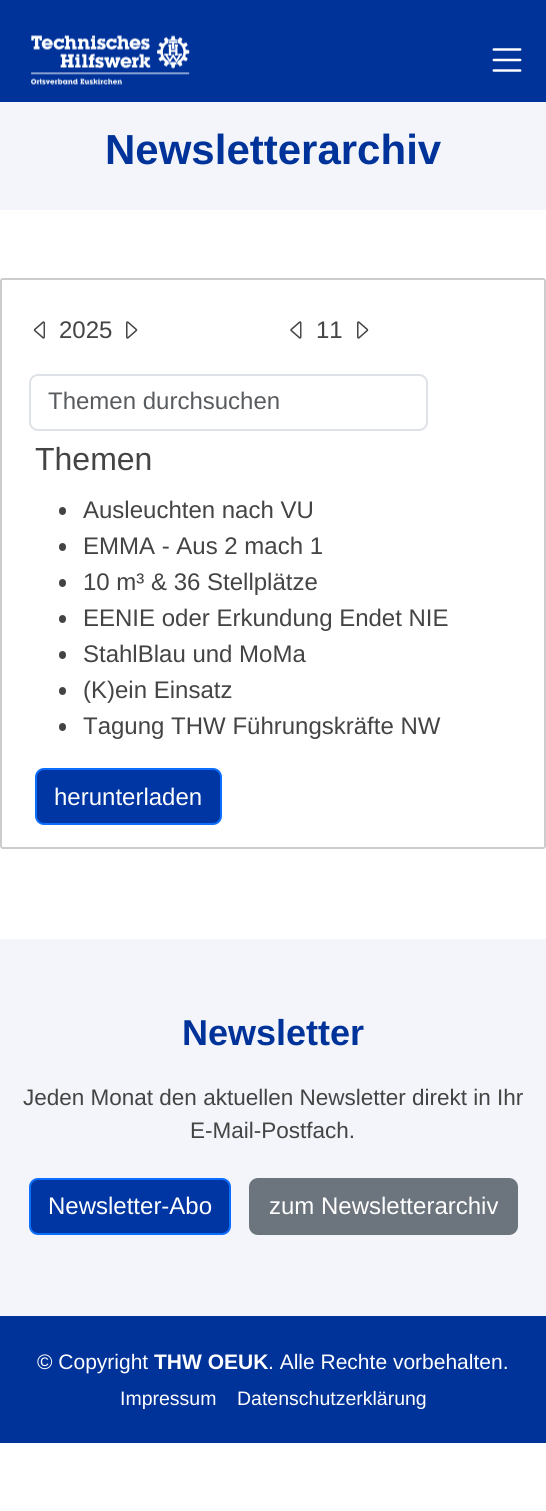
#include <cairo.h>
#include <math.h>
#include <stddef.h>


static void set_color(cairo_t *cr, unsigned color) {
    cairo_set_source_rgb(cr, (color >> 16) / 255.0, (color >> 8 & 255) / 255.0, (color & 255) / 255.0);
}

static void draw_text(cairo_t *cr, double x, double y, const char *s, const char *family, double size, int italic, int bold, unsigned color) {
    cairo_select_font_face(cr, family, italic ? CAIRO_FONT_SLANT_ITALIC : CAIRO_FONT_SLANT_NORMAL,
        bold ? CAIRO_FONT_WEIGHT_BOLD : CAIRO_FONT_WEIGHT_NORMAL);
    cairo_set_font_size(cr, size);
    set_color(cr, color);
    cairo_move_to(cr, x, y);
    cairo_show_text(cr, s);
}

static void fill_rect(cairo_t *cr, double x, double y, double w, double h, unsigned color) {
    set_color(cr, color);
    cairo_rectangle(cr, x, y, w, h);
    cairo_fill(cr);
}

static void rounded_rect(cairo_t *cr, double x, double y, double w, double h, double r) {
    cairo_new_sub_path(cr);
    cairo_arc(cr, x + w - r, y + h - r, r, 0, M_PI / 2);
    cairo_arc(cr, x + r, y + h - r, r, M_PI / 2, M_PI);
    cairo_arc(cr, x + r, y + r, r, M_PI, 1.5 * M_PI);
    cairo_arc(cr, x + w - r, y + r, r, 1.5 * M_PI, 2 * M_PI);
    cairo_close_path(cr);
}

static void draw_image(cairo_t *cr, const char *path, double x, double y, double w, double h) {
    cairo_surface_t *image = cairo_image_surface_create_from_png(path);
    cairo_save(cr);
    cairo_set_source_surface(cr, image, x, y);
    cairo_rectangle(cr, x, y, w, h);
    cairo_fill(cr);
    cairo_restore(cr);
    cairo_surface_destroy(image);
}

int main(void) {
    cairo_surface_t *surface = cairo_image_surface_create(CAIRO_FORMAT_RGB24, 546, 1511);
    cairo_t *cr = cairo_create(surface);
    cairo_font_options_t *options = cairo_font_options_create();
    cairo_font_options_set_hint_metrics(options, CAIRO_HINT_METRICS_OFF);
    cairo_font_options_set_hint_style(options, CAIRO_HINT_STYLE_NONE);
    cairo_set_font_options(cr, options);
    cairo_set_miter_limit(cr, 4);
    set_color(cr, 0xFFFFFF);
    cairo_paint(cr);
    fill_rect(cr, 0, 0, 546, 102, 0x003399);
    draw_image(cr, "assets/img1.png", 31, 35, 159, 50);
    draw_image(cr, "assets/img2.png", 492, 48, 30, 24);
    fill_rect(cr, 0, 102, 546, 108, 0xF3F5FA);
    draw_text(cr, 105, 164, "Newsletterarchiv", "Liberation Sans", 42, 0, 1, 0x003399);
    rounded_rect(cr, 1, 279, 544, 569, 2);
    set_color(cr, 0xCCCCCC);
    cairo_stroke(cr);
    draw_image(cr, "assets/img3.png", 33, 321, 12, 18);
    draw_text(cr, 59, 338, "2025", "Liberation Sans", 24, 0, 0, 0x444444);
    draw_image(cr, "assets/img4.png", 126, 321, 12, 18);
    draw_image(cr, "assets/img5.png", 290, 321, 12, 18);
    draw_text(cr, 316, 338, "11", "Liberation Sans", 24, 0, 0, 0x444444);
    draw_image(cr, "assets/img4.png", 357, 321, 12, 18);
    rounded_rect(cr, 30, 375, 397, 55, 8);
    set_color(cr, 0xDEE2E6);
    cairo_stroke(cr);
    draw_text(cr, 48, 409, "Themen durchsuchen", "Liberation Sans", 24, 0, 0, 0x595C5F);
    draw_text(cr, 35, 470, "Themen", "Liberation Sans", 32, 0, 0, 0x444444);
    rounded_rect(cr, 59, 507, 7, 8, 3.5);
    cairo_fill(cr);
    draw_text(cr, 83, 518, "Ausleuchten nach VU", "Liberation Sans", 24, 0, 0, 0x444444);
    rounded_rect(cr, 59, 543, 7, 8, 3.5);
    cairo_fill(cr);
    draw_text(cr, 83, 554, "EMMA - Aus 2 mach 1", "Liberation Sans", 24, 0, 0, 0x444444);
    rounded_rect(cr, 59, 579, 7, 8, 3.5);
    cairo_fill(cr);
    draw_text(cr, 83, 590, "10 m³ & 36 Stellplätze", "Liberation Sans", 24, 0, 0, 0x444444);
    rounded_rect(cr, 59, 615, 7, 8, 3.5);
    cairo_fill(cr);
    draw_text(cr, 83, 626, "EENIE oder Erkundung Endet NIE", "Liberation Sans", 24, 0, 0, 0x444444);
    rounded_rect(cr, 59, 651, 7, 8, 3.5);
    cairo_fill(cr);
    draw_text(cr, 83, 662, "StahlBlau und MoMa", "Liberation Sans", 24, 0, 0, 0x444444);
    rounded_rect(cr, 59, 687, 7, 8, 3.5);
    cairo_fill(cr);
    draw_text(cr, 83, 698, "(K)ein Einsatz", "Liberation Sans", 24, 0, 0, 0x444444);
    rounded_rect(cr, 59, 723, 7, 8, 3.5);
    cairo_fill(cr);
    draw_text(cr, 83, 734, "Tagung THW Führungskräfte NW", "Liberation Sans", 24, 0, 0, 0x444444);
    set_color(cr, 0x0036A3);
    rounded_rect(cr, 36, 769, 185, 55, 8);
    cairo_fill_preserve(cr);
    set_color(cr, 0x0D6EFD);
    cairo_stroke(cr);
    draw_text(cr, 54, 805, "herunterladen", "Liberation Sans", 24, 0, 0, 0xFFFFFF);
    fill_rect(cr, 0, 939, 546, 377, 0xF3F5FA);
    draw_text(cr, 182, 1045, "Newsletter", "Liberation Sans", 36, 0, 1, 0x003399);
    draw_text(cr, 23, 1105, "Jeden Monat den aktuellen Newsletter direkt in Ihr", "Liberation Sans", 22.5, 0, 0, 0x444444);
    draw_text(cr, 190, 1138, "E-Mail-Postfach.", "Liberation Sans", 22.5, 0, 0, 0x444444);
    set_color(cr, 0x0036A3);
    rounded_rect(cr, 30, 1179, 200, 55, 8);
    cairo_fill_preserve(cr);
    set_color(cr, 0x0D6EFD);
    cairo_stroke(cr);
    draw_text(cr, 48, 1214, "Newsletter-Abo", "Liberation Sans", 24, 0, 0, 0xFFFFFF);
    set_color(cr, 0x6C757D);
    rounded_rect(cr, 250, 1179, 267, 55, 8);
    cairo_fill_preserve(cr);
    cairo_stroke(cr);
    draw_text(cr, 269, 1214, "zum Newsletterarchiv", "Liberation Sans", 24, 0, 0, 0xFFFFFF);
    fill_rect(cr, 0, 1316, 546, 127, 0x003399);
    draw_text(cr, 37, 1369, "© Copyright", "Liberation Sans", 21, 0, 0, 0xFFFFFF);
    draw_text(cr, 154, 1369, "THW OEUK", "Liberation Sans", 21, 0, 1, 0xFFFFFF);
    draw_text(cr, 268, 1369, ". Alle Rechte vorbehalten.", "Liberation Sans", 21, 0, 0, 0xFFFFFF);
    draw_text(cr, 120, 1405, "Impressum", "Liberation Sans", 19.5, 0, 0, 0xFFFFFF);
    draw_text(cr, 237, 1405, "Datenschutzerklärung", "Liberation Sans", 19.5, 0, 0, 0xFFFFFF);
    cairo_surface_write_to_png(surface, "output.png");
    cairo_font_options_destroy(options);
    cairo_destroy(cr);
    cairo_surface_destroy(surface);
    return 0;
}
